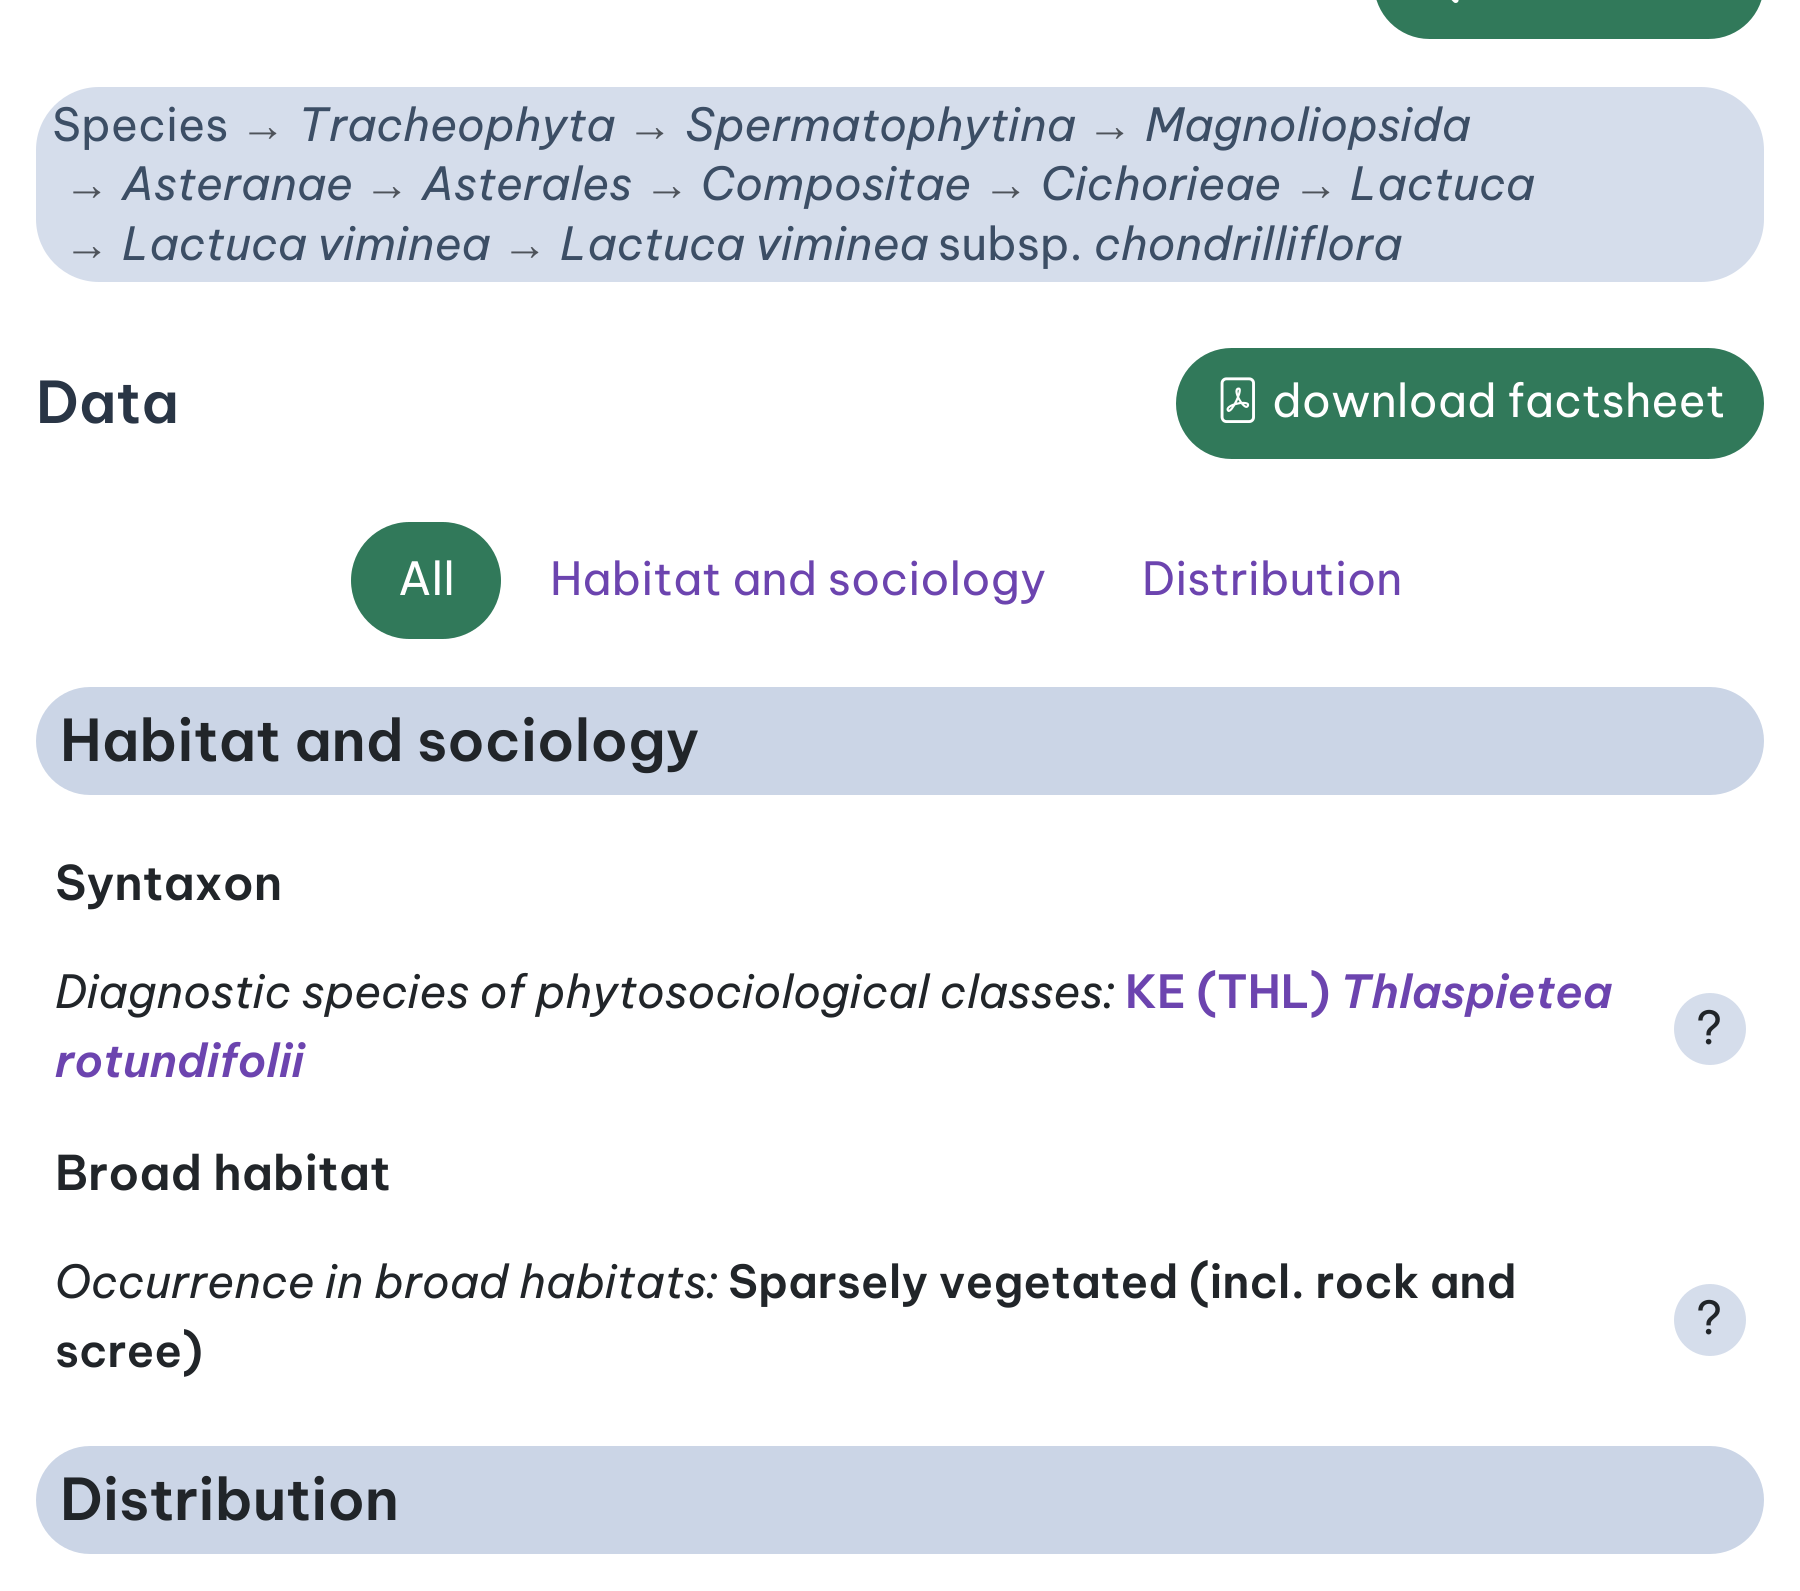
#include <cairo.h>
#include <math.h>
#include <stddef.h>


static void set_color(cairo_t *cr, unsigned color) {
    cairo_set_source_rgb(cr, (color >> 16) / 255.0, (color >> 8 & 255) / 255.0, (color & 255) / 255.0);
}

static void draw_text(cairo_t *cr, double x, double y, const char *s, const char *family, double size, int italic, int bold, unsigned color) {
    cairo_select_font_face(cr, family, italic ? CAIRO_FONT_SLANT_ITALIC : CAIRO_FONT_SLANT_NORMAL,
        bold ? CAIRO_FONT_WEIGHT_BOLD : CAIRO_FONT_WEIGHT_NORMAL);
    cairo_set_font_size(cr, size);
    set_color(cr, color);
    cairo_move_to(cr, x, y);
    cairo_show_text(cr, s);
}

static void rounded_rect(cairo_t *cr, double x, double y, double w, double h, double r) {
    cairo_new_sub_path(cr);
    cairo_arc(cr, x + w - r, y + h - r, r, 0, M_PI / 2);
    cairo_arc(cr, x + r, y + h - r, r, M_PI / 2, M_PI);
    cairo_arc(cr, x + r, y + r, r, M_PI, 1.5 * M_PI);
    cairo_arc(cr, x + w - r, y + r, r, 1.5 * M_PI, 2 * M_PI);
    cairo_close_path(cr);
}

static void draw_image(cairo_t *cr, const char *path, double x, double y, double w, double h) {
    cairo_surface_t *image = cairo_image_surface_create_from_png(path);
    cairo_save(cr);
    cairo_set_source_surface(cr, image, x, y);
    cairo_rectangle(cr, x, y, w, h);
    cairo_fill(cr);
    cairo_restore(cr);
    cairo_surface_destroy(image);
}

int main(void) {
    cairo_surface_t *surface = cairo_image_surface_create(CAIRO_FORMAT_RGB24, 1800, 1591);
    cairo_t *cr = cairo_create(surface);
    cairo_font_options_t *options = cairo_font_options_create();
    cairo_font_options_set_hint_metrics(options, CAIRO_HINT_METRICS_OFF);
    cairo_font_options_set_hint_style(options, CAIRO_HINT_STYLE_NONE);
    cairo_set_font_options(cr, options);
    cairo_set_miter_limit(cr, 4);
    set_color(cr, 0xFFFFFF);
    cairo_paint(cr);
    set_color(cr, 0x31795A);
    rounded_rect(cr, 1375.5, -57.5, 387, 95, 54);
    cairo_fill_preserve(cr);
    cairo_set_line_width(cr, 3);
    cairo_stroke(cr);
    draw_image(cr, "assets/img1.png", 1451, 0, 8, 3);
    set_color(cr, 0xD5DDEB);
    rounded_rect(cr, 36, 87, 1728, 195, 63);
    cairo_fill(cr);
    draw_text(cr, 52, 141, "Species", "Be Vietnam Pro", 45.6, 0, 0, 0x3C4E65);
    draw_text(cr, 240, 141, "→", "Liberation Sans", 45.6, 0, 0, 0x4E535A);
    draw_text(cr, 298, 141, "Tracheophyta", "Be Vietnam Pro", 45.6, 1, 0, 0x3C4E65);
    draw_text(cr, 627, 141, "→", "Liberation Sans", 45.6, 0, 0, 0x4E535A);
    draw_text(cr, 685, 141, "Spermatophytina", "Be Vietnam Pro", 45.6, 1, 0, 0x3C4E65);
    draw_text(cr, 1087, 141, "→", "Liberation Sans", 45.6, 0, 0, 0x4E535A);
    draw_text(cr, 1145, 141, "Magnoliopsida", "Be Vietnam Pro", 45.6, 1, 0, 0x3C4E65);
    draw_text(cr, 64, 200, "→", "Liberation Sans", 45.6, 0, 0, 0x4E535A);
    draw_text(cr, 122, 200, "Asteranae", "Be Vietnam Pro", 45.6, 1, 0, 0x3C4E65);
    draw_text(cr, 364, 200, "→", "Liberation Sans", 45.6, 0, 0, 0x4E535A);
    draw_text(cr, 422, 200, "Asterales", "Be Vietnam Pro", 45.6, 1, 0, 0x3C4E65);
    draw_text(cr, 644, 200, "→", "Liberation Sans", 45.6, 0, 0, 0x4E535A);
    draw_text(cr, 701, 200, "Compositae", "Be Vietnam Pro", 45.6, 1, 0, 0x3C4E65);
    draw_text(cr, 983, 200, "→", "Liberation Sans", 45.6, 0, 0, 0x4E535A);
    draw_text(cr, 1041, 200, "Cichorieae", "Be Vietnam Pro", 45.6, 1, 0, 0x3C4E65);
    draw_text(cr, 1293, 200, "→", "Liberation Sans", 45.6, 0, 0, 0x4E535A);
    draw_text(cr, 1350, 200, "Lactuca", "Be Vietnam Pro", 45.6, 1, 0, 0x3C4E65);
    draw_text(cr, 64, 260, "→", "Liberation Sans", 45.6, 0, 0, 0x4E535A);
    draw_text(cr, 122, 260, "Lactuca viminea", "Be Vietnam Pro", 45.6, 1, 0, 0x3C4E65);
    draw_text(cr, 502, 260, "→", "Liberation Sans", 45.6, 0, 0, 0x4E535A);
    draw_text(cr, 560, 260, "Lactuca viminea", "Be Vietnam Pro", 45.6, 1, 0, 0x3C4E65);
    draw_text(cr, 938, 260, "subsp.", "Be Vietnam Pro", 45.6, 0, 0, 0x3C4E65);
    draw_text(cr, 1094, 260, "chondrilliflora", "Be Vietnam Pro", 45.6, 1, 0, 0x3C4E65);
    draw_text(cr, 36, 423, "Data", "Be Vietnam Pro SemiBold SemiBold", 57.5, 0, 0, 0x293545);
    set_color(cr, 0x31795A);
    rounded_rect(cr, 1177.5, 349.5, 585, 108, 54);
    cairo_fill_preserve(cr);
    cairo_stroke(cr);
    draw_image(cr, "assets/img2.png", 1220, 377, 35, 46);
    draw_text(cr, 1272, 417, "download factsheet", "Be Vietnam Pro", 45.6, 0, 0, 0xFFFFFF);
    set_color(cr, 0x31795A);
    rounded_rect(cr, 351, 522, 150, 117, 58.5);
    cairo_fill(cr);
    draw_text(cr, 398, 595, "All", "Be Vietnam Pro", 45.6, 0, 0, 0xFFFFFF);
    draw_text(cr, 550, 595, "Habitat and sociology", "Be Vietnam Pro", 45.6, 0, 0, 0x6C44AF);
    draw_text(cr, 1142, 595, "Distribution", "Be Vietnam Pro", 45.6, 0, 0, 0x6C44AF);
    set_color(cr, 0xCBD5E6);
    rounded_rect(cr, 36, 687, 1728, 108, 54);
    cairo_fill(cr);
    draw_text(cr, 60, 761, "Habitat and sociology", "Be Vietnam Pro SemiBold SemiBold", 57.5, 0, 0, 0x212529);
    draw_text(cr, 55, 900, "Syntaxon", "Be Vietnam Pro SemiBold SemiBold", 47.75, 0, 0, 0x212529);
    draw_text(cr, 55, 1008, "Diagnostic species of phytosociological classes", "Be Vietnam Pro", 45.6, 1, 0, 0x212529);
    draw_text(cr, 1103, 1008, ":", "Be Vietnam Pro", 45.6, 1, 0, 0x212529);
    draw_text(cr, 1125, 1008, "KE (THL)", "Be Vietnam Pro SemiBold SemiBold", 45.6, 0, 0, 0x6C44AF);
    draw_text(cr, 1340, 1008, "Thlaspietea", "Be Vietnam Pro SemiBold SemiBold", 45.6, 1, 0, 0x6C44AF);
    draw_text(cr, 55, 1077, "rotundifolii", "Be Vietnam Pro SemiBold SemiBold", 45.6, 1, 0, 0x6C44AF);
    set_color(cr, 0xD5DDEB);
    cairo_new_path(cr);
    cairo_arc(cr, 1710, 1029, 36, 0, 2 * M_PI);
    cairo_fill(cr);
    draw_text(cr, 1696, 1044, "?", "Be Vietnam Pro", 45.6, 0, 0, 0x212529);
    draw_text(cr, 55, 1190, "Broad habitat", "Be Vietnam Pro SemiBold SemiBold", 47.75, 0, 0, 0x212529);
    draw_text(cr, 55, 1298, "Occurrence in broad habitats", "Be Vietnam Pro", 45.6, 1, 0, 0x212529);
    draw_text(cr, 706, 1298, ":", "Be Vietnam Pro", 45.6, 1, 0, 0x212529);
    draw_text(cr, 728, 1298, "Sparsely vegetated (incl. rock and", "Be Vietnam Pro SemiBold SemiBold", 45.6, 0, 0, 0x212529);
    draw_text(cr, 55, 1367, "scree)", "Be Vietnam Pro SemiBold SemiBold", 45.6, 0, 0, 0x212529);
    set_color(cr, 0xD5DDEB);
    cairo_new_path(cr);
    cairo_arc(cr, 1710, 1320, 36, 0, 2 * M_PI);
    cairo_fill(cr);
    draw_text(cr, 1696, 1334, "?", "Be Vietnam Pro", 45.6, 0, 0, 0x212529);
    set_color(cr, 0xCBD5E6);
    rounded_rect(cr, 36, 1446, 1728, 108, 54);
    cairo_fill(cr);
    draw_text(cr, 60, 1520, "Distribution", "Be Vietnam Pro SemiBold SemiBold", 57.5, 0, 0, 0x212529);
    cairo_surface_write_to_png(surface, "output.png");
    cairo_font_options_destroy(options);
    cairo_destroy(cr);
    cairo_surface_destroy(surface);
    return 0;
}
